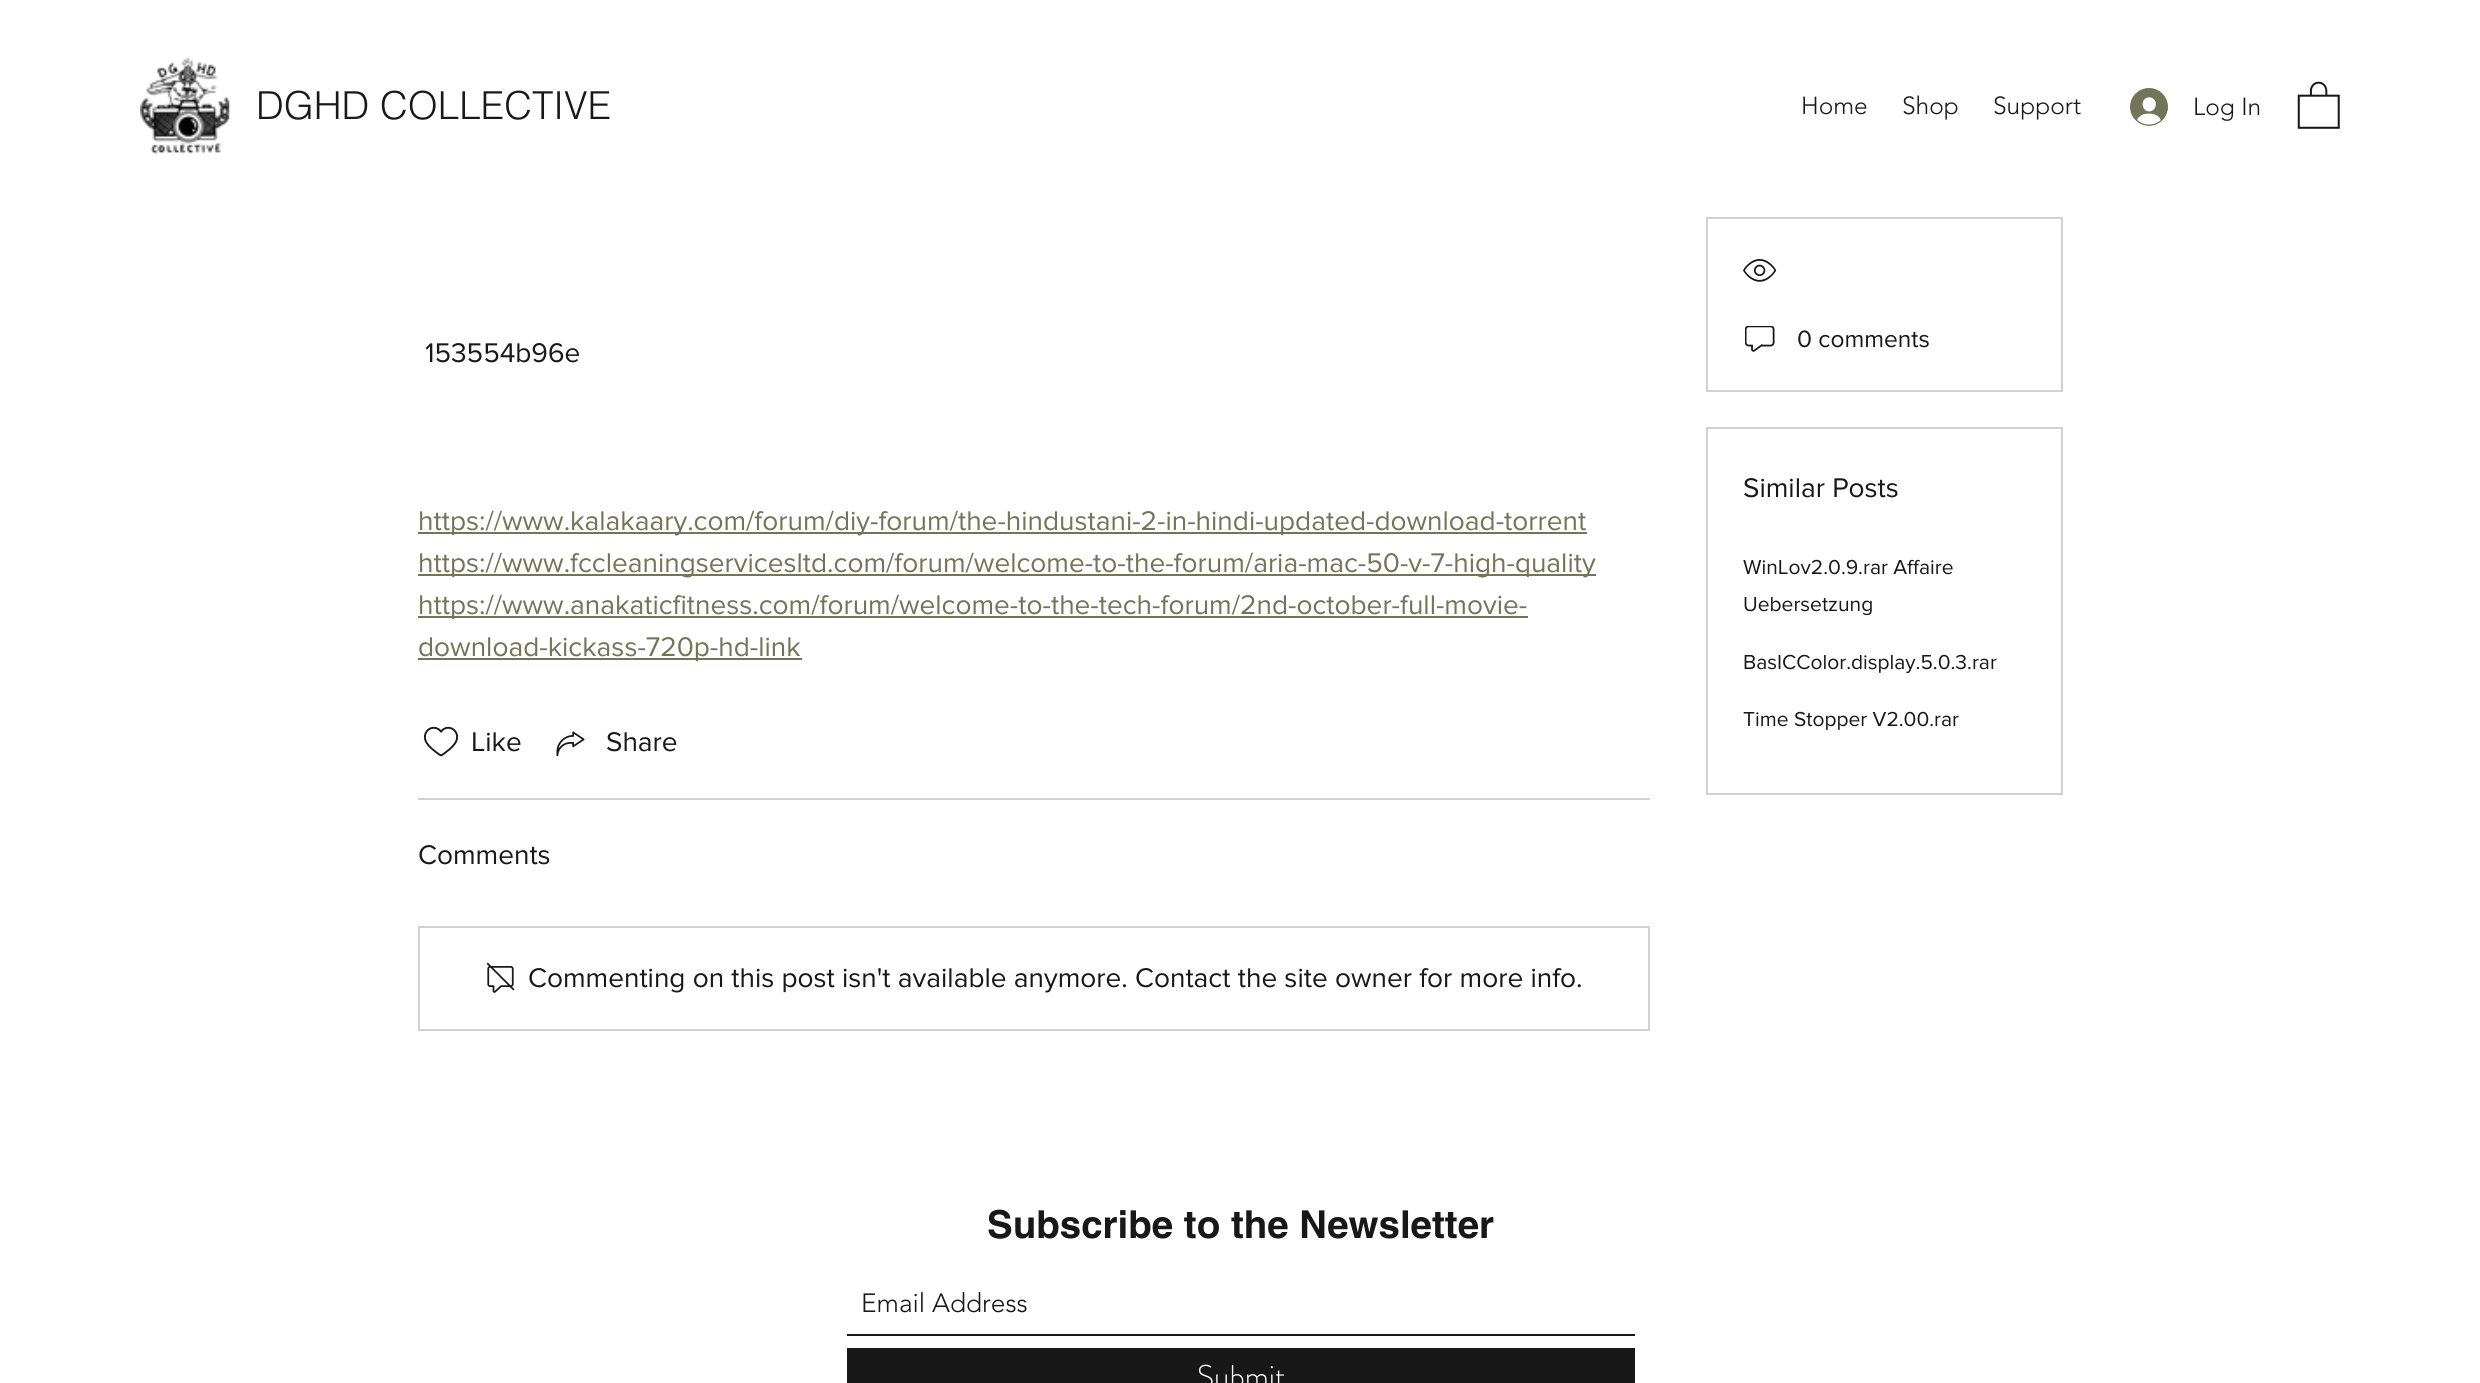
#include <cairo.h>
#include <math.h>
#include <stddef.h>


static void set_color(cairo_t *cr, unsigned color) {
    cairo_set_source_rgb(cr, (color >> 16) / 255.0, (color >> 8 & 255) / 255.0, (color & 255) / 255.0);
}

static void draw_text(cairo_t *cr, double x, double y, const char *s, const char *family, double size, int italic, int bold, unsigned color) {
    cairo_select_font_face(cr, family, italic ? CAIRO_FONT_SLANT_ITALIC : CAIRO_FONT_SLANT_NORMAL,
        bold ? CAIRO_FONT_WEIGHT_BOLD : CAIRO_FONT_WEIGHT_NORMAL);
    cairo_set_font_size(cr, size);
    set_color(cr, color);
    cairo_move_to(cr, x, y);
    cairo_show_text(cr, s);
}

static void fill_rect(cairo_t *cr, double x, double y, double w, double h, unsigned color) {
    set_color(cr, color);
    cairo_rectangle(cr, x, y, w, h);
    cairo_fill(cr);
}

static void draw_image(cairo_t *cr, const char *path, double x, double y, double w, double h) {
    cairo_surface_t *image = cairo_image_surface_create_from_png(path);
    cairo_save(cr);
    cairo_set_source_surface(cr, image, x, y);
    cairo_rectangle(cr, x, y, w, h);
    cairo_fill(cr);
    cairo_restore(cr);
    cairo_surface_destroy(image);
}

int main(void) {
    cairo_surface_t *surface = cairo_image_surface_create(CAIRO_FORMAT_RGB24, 2480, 1383);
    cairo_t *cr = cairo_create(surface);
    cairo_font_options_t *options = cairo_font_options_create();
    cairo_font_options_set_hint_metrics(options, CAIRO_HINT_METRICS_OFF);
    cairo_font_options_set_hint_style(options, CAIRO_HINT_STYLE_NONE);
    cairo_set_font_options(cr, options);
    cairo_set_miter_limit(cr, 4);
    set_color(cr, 0xFFFFFF);
    cairo_paint(cr);
    draw_image(cr, "assets/img1.png", 140, 56, 90, 99);
    draw_text(cr, 256, 119, "DGHD COLLECTIVE", "helvetica Light", 38.5, 0, 0, 0x181818);
    draw_text(cr, 1801, 114, "Home", "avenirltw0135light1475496 Light", 24.5, 0, 0, 0x181818);
    draw_text(cr, 1902, 114, "Shop", "avenirltw0135light1475496 Light", 24.5, 0, 0, 0x181818);
    draw_text(cr, 1993, 114, "Support", "avenirltw0135light1475496 Light", 24.5, 0, 0, 0x181818);
    draw_image(cr, "assets/img2.png", 2130, 88, 38, 38);
    draw_text(cr, 2193, 115, "Log In", "avenirltw0135light1475496 Light", 24.5, 0, 0, 0x181818);
    draw_image(cr, "assets/img3.png", 2297, 81, 43, 48);
    draw_text(cr, 425, 362, "153554b96e", "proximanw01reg", 28, 0, 0, 0x181818);
    fill_rect(cr, 418, 532, 1169, 2, 0x727557);
    draw_text(cr, 418, 530, "https://www.kalakaary.com/forum/diy-forum/the-hindustani-2-in-hindi-updated-download-torrent", "proximanw01reg", 28, 0, 0, 0x727557);
    fill_rect(cr, 418, 574, 1178, 2, 0x727557);
    draw_text(cr, 418, 572, "https://www.fccleaningservicesltd.com/forum/welcome-to-the-forum/aria-mac-50-v-7-high-quality", "proximanw01reg", 28, 0, 0, 0x727557);
    fill_rect(cr, 418, 616, 1110, 2, 0x727557);
    draw_text(cr, 418, 614, "https://www.anakaticfitness.com/forum/welcome-to-the-tech-forum/2nd-october-full-movie-", "proximanw01reg", 28, 0, 0, 0x727557);
    fill_rect(cr, 418, 658, 384, 2, 0x727557);
    draw_text(cr, 418, 656, "download-kickass-720p-hd-link", "proximanw01reg", 28, 0, 0, 0x727557);
    draw_image(cr, "assets/img4.png", 423, 726, 36, 31);
    draw_text(cr, 471, 751, "Like", "proximanw01reg", 28, 0, 0, 0x181818);
    draw_image(cr, "assets/img5.png", 556, 731, 29, 25);
    draw_text(cr, 606, 751, "Share", "proximanw01reg", 28, 0, 0, 0x181818);
    fill_rect(cr, 418, 798, 1232, 2, 0xD1D1D1);
    draw_text(cr, 418, 864, "Comments", "proximanw01reg", 28, 0, 0, 0x181818);
    cairo_rectangle(cr, 419, 927, 1230, 103);
    set_color(cr, 0xD1D1D1);
    cairo_stroke(cr);
    draw_image(cr, "assets/img6.png", 487, 963, 28, 30);
    draw_text(cr, 528, 987, "Commenting on this post isn't available anymore. Contact the site owner for more info.", "proximanw01reg", 28, 0, 0, 0x181818);
    cairo_rectangle(cr, 1707, 218, 355, 173);
    set_color(cr, 0xD1D1D1);
    cairo_stroke(cr);
    draw_image(cr, "assets/img7.png", 1743, 259, 34, 23);
    draw_image(cr, "assets/img8.png", 1745, 326, 30, 26);
    draw_text(cr, 1797, 347, "0 comments", "proximanw01reg", 24.5, 0, 0, 0x181818);
    cairo_rectangle(cr, 1707, 428, 355, 366);
    set_color(cr, 0xD1D1D1);
    cairo_stroke(cr);
    draw_text(cr, 1743, 497, "Similar Posts", "proximanw01reg", 28, 0, 0, 0x181818);
    draw_text(cr, 1743, 574, "WinLov2.0.9.rar Affaire", "proximanw01reg", 21, 0, 0, 0x181818);
    draw_text(cr, 1743, 611, "Uebersetzung", "proximanw01reg", 21, 0, 0, 0x181818);
    draw_text(cr, 1743, 669, "BasICColor.display.5.0.3.rar", "proximanw01reg", 21, 0, 0, 0x181818);
    draw_text(cr, 1743, 726, "Time Stopper V2.00.rar", "proximanw01reg", 21, 0, 0, 0x181818);
    draw_text(cr, 987, 1238, "Subscribe to the Newsletter", "helvetica", 38.5, 0, 1, 0x181818);
    fill_rect(cr, 847, 1334, 788, 2, 0x181818);
    draw_text(cr, 861, 1312, "Email Address", "avenirltw0135light1475496 Light", 26.25, 0, 0, 0x181818);
    fill_rect(cr, 847, 1348, 788, 35, 0x181818);
    draw_text(cr, 1197, 1387, "Submit", "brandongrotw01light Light", 31.5, 0, 0, 0xFFFFFF);
    cairo_surface_write_to_png(surface, "output.png");
    cairo_font_options_destroy(options);
    cairo_destroy(cr);
    cairo_surface_destroy(surface);
    return 0;
}
